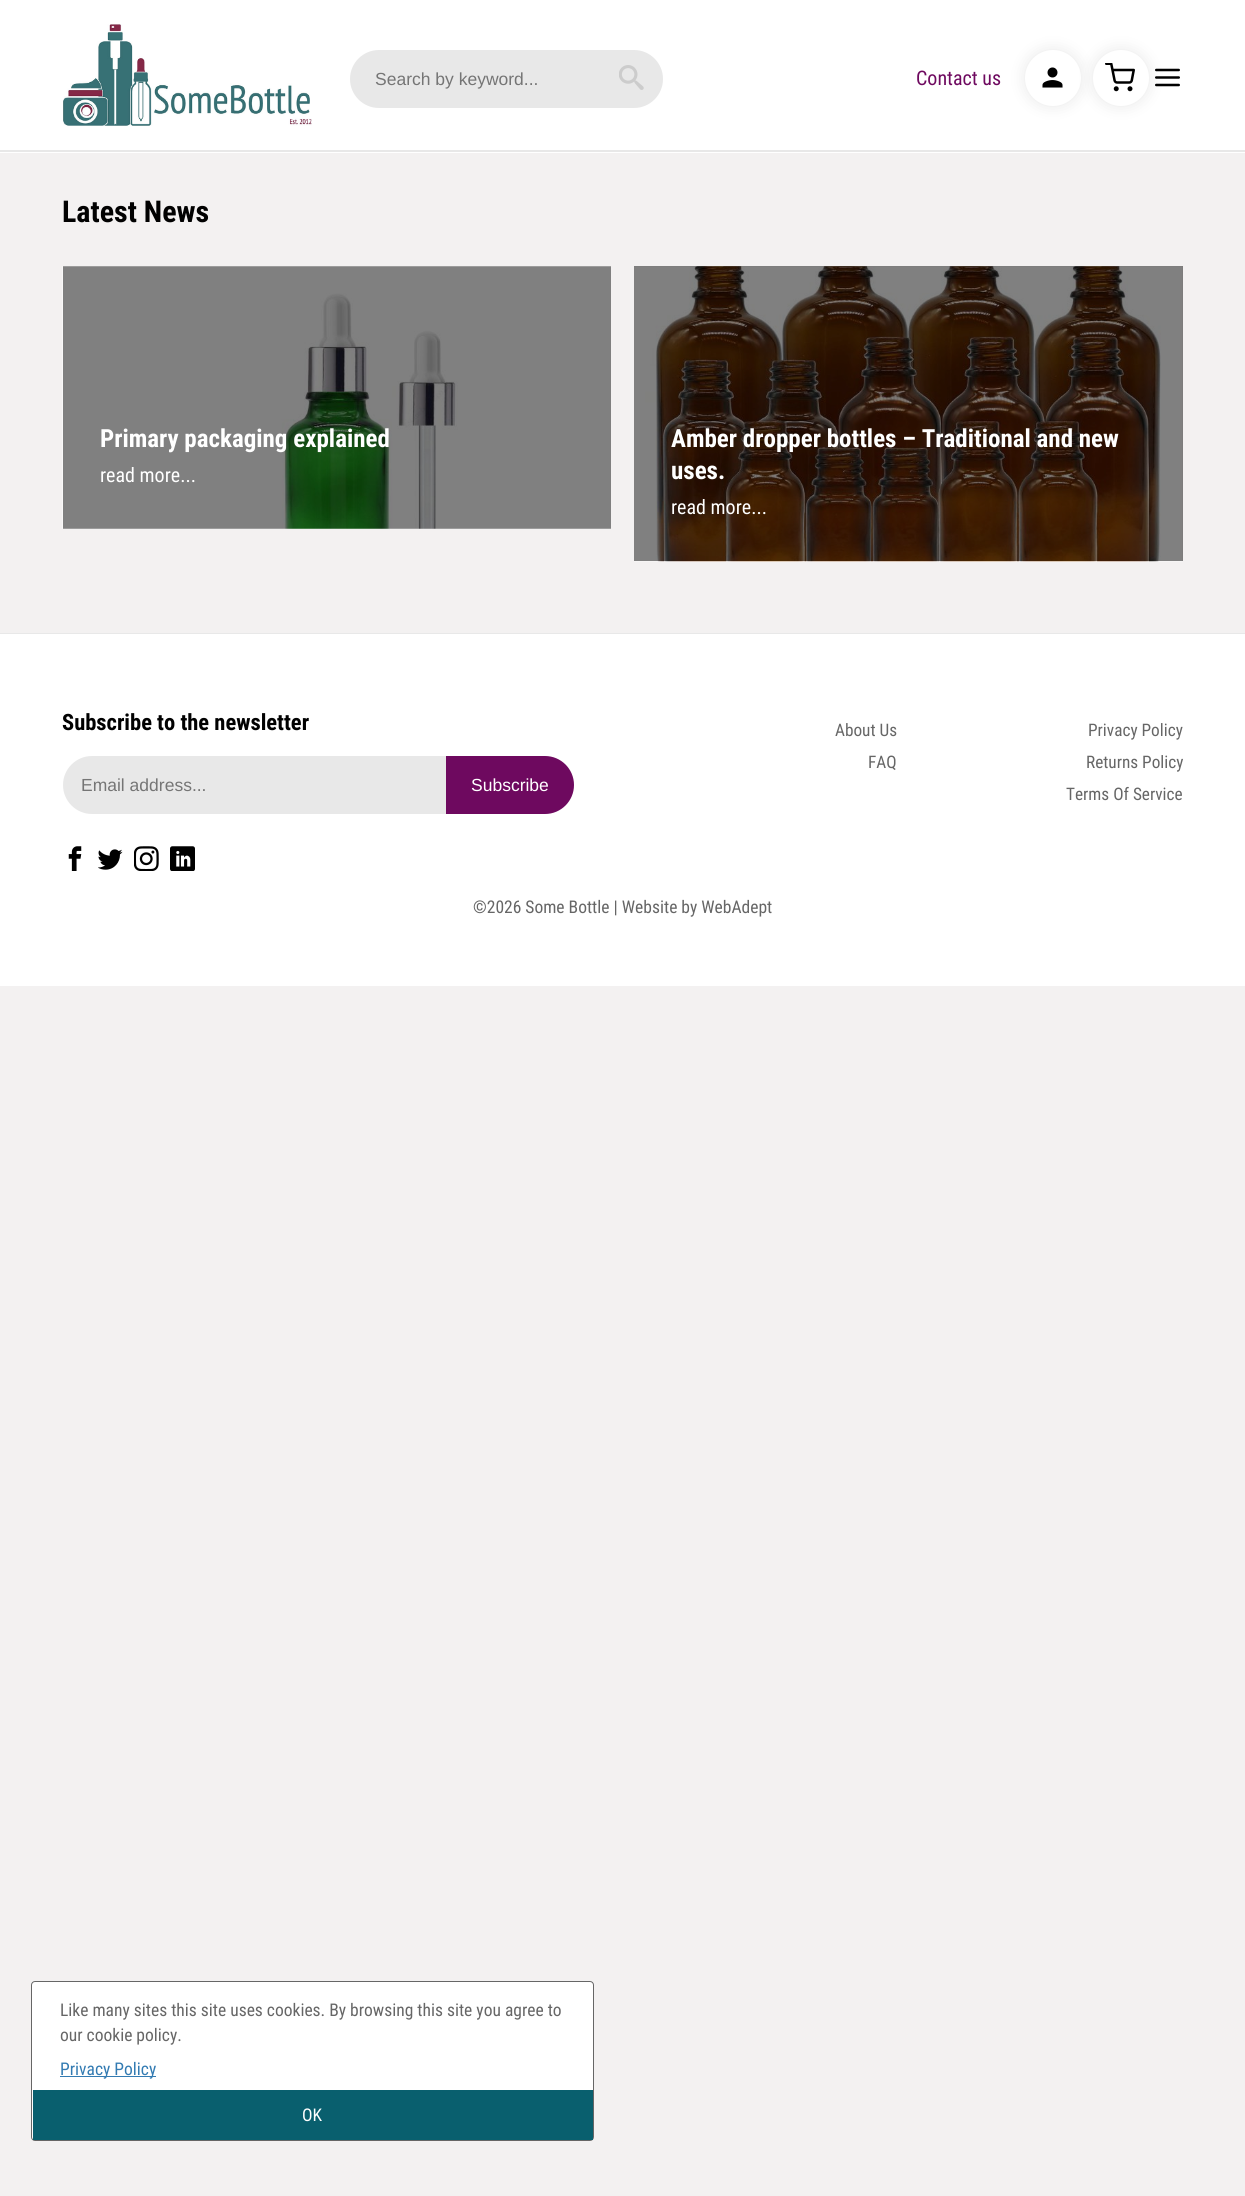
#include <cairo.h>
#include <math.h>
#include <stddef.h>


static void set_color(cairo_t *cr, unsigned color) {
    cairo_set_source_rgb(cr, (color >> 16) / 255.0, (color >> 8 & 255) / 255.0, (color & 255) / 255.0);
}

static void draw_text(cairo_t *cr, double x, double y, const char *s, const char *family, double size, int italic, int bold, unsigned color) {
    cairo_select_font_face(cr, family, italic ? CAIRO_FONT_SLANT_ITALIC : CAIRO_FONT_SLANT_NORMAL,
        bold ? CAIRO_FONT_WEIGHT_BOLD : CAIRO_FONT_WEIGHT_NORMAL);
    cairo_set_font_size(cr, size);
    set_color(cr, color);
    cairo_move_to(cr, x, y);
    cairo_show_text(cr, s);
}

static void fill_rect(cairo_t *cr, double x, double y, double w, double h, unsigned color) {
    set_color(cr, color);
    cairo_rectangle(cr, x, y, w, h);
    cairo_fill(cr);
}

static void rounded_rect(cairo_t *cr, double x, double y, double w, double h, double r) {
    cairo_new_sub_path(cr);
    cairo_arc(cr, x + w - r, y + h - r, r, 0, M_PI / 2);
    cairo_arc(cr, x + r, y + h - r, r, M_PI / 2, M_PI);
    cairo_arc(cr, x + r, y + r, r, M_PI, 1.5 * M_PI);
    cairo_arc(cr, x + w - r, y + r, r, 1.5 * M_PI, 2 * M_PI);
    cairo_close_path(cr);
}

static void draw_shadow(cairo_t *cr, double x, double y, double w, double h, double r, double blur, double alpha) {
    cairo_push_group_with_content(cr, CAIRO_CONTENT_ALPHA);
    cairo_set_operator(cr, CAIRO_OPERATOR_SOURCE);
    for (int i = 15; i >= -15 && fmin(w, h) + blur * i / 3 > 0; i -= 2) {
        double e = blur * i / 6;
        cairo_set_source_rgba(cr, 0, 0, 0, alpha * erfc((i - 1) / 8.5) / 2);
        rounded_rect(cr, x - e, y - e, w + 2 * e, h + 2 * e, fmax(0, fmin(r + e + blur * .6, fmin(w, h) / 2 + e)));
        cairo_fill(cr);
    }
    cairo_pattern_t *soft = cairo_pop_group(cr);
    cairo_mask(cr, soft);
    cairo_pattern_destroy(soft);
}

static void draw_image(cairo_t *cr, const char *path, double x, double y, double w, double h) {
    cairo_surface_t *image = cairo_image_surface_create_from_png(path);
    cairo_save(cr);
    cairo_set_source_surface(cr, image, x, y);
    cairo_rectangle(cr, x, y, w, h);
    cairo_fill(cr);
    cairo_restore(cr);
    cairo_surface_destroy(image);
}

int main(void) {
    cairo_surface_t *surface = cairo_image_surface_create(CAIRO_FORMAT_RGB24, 1245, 2196);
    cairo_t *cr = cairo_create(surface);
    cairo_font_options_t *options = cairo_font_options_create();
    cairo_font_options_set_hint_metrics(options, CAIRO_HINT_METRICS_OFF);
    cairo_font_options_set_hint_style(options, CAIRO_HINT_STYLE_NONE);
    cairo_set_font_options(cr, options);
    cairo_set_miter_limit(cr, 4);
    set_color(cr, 0xF3F1F1);
    cairo_paint(cr);
    fill_rect(cr, 634, 266, 549, 295, 0x7A7979);
    fill_rect(cr, 0, 0, 1245, 153, 0xFFFFFF);
    fill_rect(cr, 0, 150, 1245, 2, 0xE8E8E8);
    draw_image(cr, "assets/img1.png", 63, 24, 249, 102);
    rounded_rect(cr, 350, 50, 313, 58, 29);
    cairo_fill(cr);
    draw_text(cr, 375, 85, "Search by keyword...", "Liberation Sans", 17.5, 0, 0, 0x757575);
    draw_image(cr, "assets/img2.png", 619, 65, 25, 25);
    set_color(cr, 0xE8E8E8);
    draw_shadow(cr, 1025, 50, 56, 56, 28, 7.5, 1);
    set_color(cr, 0xFFFFFF);
    cairo_arc(cr, 1053, 78, 28, 0, 2 * M_PI);
    cairo_fill(cr);
    draw_image(cr, "assets/img3.png", 1042, 67, 21, 21);
    set_color(cr, 0xE8E8E8);
    draw_shadow(cr, 1093, 50, 56, 56, 28, 7.5, 1);
    set_color(cr, 0xFFFFFF);
    cairo_arc(cr, 1121, 78, 28, 0, 2 * M_PI);
    cairo_fill(cr);
    draw_image(cr, "assets/img4.png", 1105, 63, 30, 29);
    draw_text(cr, 916, 85, "Contact us", "Roboto Condensed", 20, 0, 0, 0x6E095F);
    draw_image(cr, "assets/img5.png", 1155, 68, 25, 19);
    draw_text(cr, 62, 222, "Latest News", "Roboto Condensed", 30, 0, 1, 0x010101);
    draw_image(cr, "assets/img6.png", 62, 266, 549, 263);
    draw_text(cr, 100, 447, "Primary packaging explained", "Roboto Condensed", 25, 0, 1, 0xFFFFFF);
    draw_text(cr, 100, 482, "read more...", "Roboto Condensed", 20, 0, 0, 0xFFFFFF);
    draw_image(cr, "assets/img7.png", 634, 266, 549, 296);
    draw_text(cr, 671, 447, "Amber dropper bottles – Traditional and new", "Roboto Condensed", 25, 0, 1, 0xFFFFFF);
    draw_text(cr, 671, 479, "uses.", "Roboto Condensed", 25, 0, 1, 0xFFFFFF);
    draw_text(cr, 671, 514, "read more...", "Roboto Condensed", 20, 0, 0, 0xFFFFFF);
    fill_rect(cr, 0, 634, 1245, 352, 0xFFFFFF);
    fill_rect(cr, 0, 633, 1245, 1, 0xE8E8E8);
    draw_text(cr, 62, 730, "Subscribe to the newsletter", "Roboto Condensed", 22.5, 0, 1, 0x010101);
    set_color(cr, 0xE8E8E8);
    cairo_new_path(cr);
    cairo_move_to(cr, 92, 756);
    cairo_line_to(cr, 446, 756);
    cairo_line_to(cr, 446, 814);
    cairo_line_to(cr, 92, 814);
    cairo_curve_to(cr, 76, 814, 63, 801, 63, 785);
    cairo_curve_to(cr, 63, 769, 76, 756, 92, 756);
    cairo_close_path(cr);
    cairo_fill(cr);
    draw_text(cr, 81, 791, "Email address...", "Liberation Sans", 17.5, 0, 0, 0x757575);
    set_color(cr, 0x6E095F);
    cairo_new_path(cr);
    cairo_move_to(cr, 446, 756);
    cairo_line_to(cr, 545, 756);
    cairo_curve_to(cr, 561, 756, 574, 769, 574, 785);
    cairo_curve_to(cr, 574, 801, 561, 814, 545, 814);
    cairo_line_to(cr, 446, 814);
    cairo_close_path(cr);
    cairo_fill(cr);
    draw_text(cr, 471, 791, "Subscribe", "Liberation Sans", 17.5, 0, 0, 0xFFFFFF);
    draw_image(cr, "assets/img8.png", 68, 846, 14, 25);
    draw_image(cr, "assets/img9.png", 98, 849, 25, 21);
    draw_image(cr, "assets/img10.png", 134, 846, 25, 25);
    draw_image(cr, "assets/img11.png", 170, 846, 25, 25);
    draw_text(cr, 835, 736, "About Us", "Roboto Condensed", 17.25, 0, 0, 0x666666);
    draw_text(cr, 868, 768, "FAQ", "Roboto Condensed", 17.25, 0, 0, 0x666666);
    draw_text(cr, 1088, 736, "Privacy Policy", "Roboto Condensed", 17.25, 0, 0, 0x666666);
    draw_text(cr, 1086, 768, "Returns Policy", "Roboto Condensed", 17.25, 0, 0, 0x666666);
    draw_text(cr, 1066, 800, "Terms Of Service", "Roboto Condensed", 17.25, 0, 0, 0x666666);
    draw_text(cr, 473, 913, "©2026 Some Bottle | Website by WebAdept", "Roboto Condensed", 17.5, 0, 0, 0x666666);
    set_color(cr, 0xFFFFFF);
    rounded_rect(cr, 31.5, 1981.5, 562, 159, 3.5);
    cairo_fill_preserve(cr);
    set_color(cr, 0x666666);
    cairo_set_line_width(cr, 1);
    cairo_stroke(cr);
    draw_text(cr, 60, 2016, "Like many sites this site uses cookies. By browsing this site you agree to", "Roboto Condensed", 17.5, 0, 0, 0x666666);
    draw_text(cr, 60, 2041, "our cookie policy.", "Roboto Condensed", 17.5, 0, 0, 0x666666);
    fill_rect(cr, 60, 2076, 96, 1, 0x337BB2);
    draw_text(cr, 60, 2075, "Privacy Policy", "Roboto Condensed", 17.5, 0, 0, 0x337BB2);
    fill_rect(cr, 33, 2090, 560, 50, 0x095F6E);
    draw_text(cr, 302, 2121, "OK", "Roboto Condensed", 17.5, 0, 0, 0xFFFFFF);
    cairo_surface_write_to_png(surface, "output.png");
    cairo_font_options_destroy(options);
    cairo_destroy(cr);
    cairo_surface_destroy(surface);
    return 0;
}
